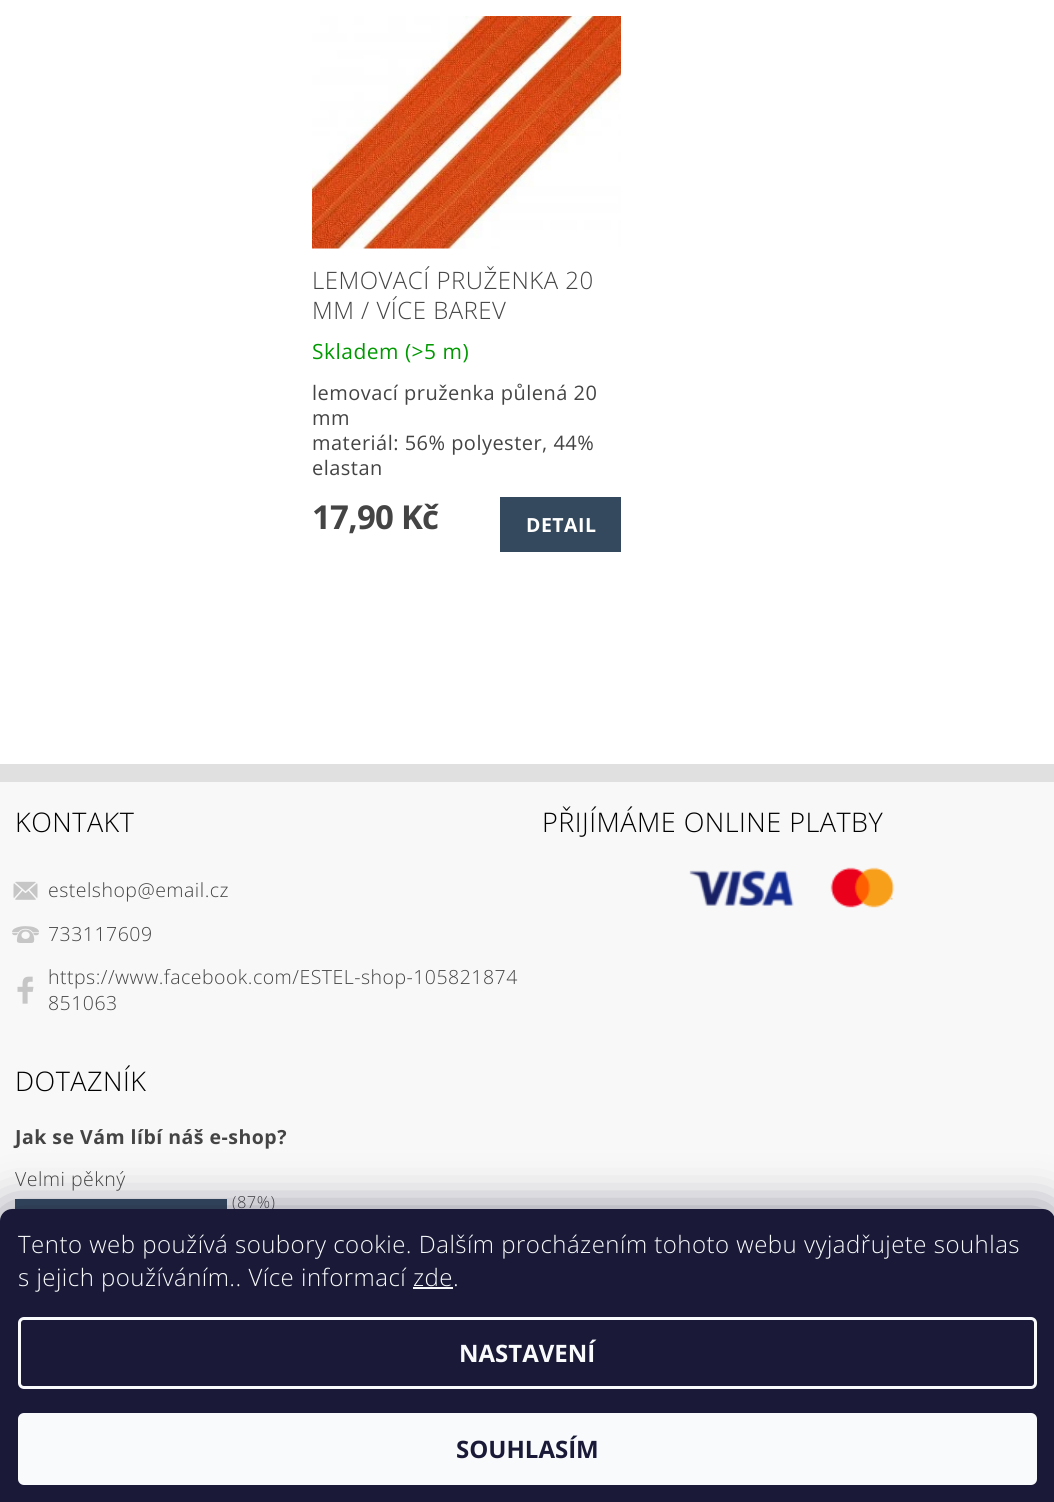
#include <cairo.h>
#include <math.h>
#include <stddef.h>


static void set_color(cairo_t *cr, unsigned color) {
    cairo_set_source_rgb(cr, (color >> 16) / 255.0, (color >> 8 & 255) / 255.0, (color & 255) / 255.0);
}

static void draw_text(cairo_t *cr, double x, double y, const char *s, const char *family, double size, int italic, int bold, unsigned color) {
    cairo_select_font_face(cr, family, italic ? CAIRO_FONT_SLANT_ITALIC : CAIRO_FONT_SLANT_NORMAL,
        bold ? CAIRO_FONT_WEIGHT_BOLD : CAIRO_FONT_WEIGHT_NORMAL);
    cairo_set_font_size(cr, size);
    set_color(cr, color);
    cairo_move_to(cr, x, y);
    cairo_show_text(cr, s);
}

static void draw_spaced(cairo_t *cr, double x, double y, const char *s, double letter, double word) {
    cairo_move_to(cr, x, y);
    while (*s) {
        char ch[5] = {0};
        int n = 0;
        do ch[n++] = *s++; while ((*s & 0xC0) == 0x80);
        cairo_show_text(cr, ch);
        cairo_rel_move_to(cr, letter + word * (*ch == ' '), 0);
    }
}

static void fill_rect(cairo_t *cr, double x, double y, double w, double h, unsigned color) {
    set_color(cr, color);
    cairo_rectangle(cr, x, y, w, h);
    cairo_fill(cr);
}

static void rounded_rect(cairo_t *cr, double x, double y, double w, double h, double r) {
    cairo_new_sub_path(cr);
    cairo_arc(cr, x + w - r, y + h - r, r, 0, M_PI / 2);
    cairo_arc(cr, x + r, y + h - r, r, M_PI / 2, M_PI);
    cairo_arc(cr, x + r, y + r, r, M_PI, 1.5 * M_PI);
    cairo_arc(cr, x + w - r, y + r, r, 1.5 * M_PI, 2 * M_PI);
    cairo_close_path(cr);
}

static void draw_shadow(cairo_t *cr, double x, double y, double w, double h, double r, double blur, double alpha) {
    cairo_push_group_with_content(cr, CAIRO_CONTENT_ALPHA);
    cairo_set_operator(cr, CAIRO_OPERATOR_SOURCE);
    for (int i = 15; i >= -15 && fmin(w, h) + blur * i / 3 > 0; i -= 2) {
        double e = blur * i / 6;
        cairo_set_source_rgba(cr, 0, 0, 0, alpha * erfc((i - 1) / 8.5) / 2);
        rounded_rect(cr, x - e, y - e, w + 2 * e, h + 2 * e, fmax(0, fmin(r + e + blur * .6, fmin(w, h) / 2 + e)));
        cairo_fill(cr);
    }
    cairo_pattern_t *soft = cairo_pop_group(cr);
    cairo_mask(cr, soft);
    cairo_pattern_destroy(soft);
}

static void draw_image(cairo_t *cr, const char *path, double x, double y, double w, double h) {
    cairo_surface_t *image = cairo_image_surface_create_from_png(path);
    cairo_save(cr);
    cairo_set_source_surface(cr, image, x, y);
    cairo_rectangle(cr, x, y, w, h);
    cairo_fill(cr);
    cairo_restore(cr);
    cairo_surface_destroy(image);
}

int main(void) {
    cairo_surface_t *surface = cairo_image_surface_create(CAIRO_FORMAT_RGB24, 1054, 1502);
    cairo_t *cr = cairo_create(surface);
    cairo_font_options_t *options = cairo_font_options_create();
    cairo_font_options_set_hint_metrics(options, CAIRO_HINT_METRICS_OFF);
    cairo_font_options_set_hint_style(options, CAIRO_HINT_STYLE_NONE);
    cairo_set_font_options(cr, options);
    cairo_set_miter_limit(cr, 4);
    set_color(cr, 0xFFFFFF);
    cairo_paint(cr);
    draw_image(cr, "assets/img1.png", 312, 16, 309, 233);
    cairo_select_font_face(cr, "Open Sans Light", CAIRO_FONT_SLANT_NORMAL, CAIRO_FONT_WEIGHT_NORMAL);
    cairo_set_font_size(cr, 24);
    set_color(cr, 0x444444);
    draw_spaced(cr, 312, 289, "LEMOVACÍ PRUŽENKA 20", 0.48, 0);
    draw_spaced(cr, 312, 319, "MM / VÍCE BAREV", 0.48, 0);
    cairo_select_font_face(cr, "Open Sans", CAIRO_FONT_SLANT_NORMAL, CAIRO_FONT_WEIGHT_NORMAL);
    cairo_set_font_size(cr, 21);
    set_color(cr, 0x009901);
    draw_spaced(cr, 312, 359, "Skladem (>5 m)", 0.48, 0);
    cairo_set_font_size(cr, 20);
    set_color(cr, 0x444444);
    draw_spaced(cr, 312, 400, "lemovací pruženka půlená 20", 0.48, 0);
    draw_spaced(cr, 312, 425, "mm", 0.48, 0);
    draw_spaced(cr, 312, 450, "materiál: 56% polyester, 44%", 0.48, 0);
    draw_spaced(cr, 312, 475, "elastan", 0.48, 0);
    cairo_select_font_face(cr, "Open Sans", CAIRO_FONT_SLANT_NORMAL, CAIRO_FONT_WEIGHT_BOLD);
    cairo_set_font_size(cr, 33);
    draw_spaced(cr, 312, 529, "17,90 Kč", -0.75, 0);
    cairo_rectangle(cr, 501, 498, 119, 53);
    set_color(cr, 0x34495E);
    cairo_stroke(cr);
    fill_rect(cr, 502, 499, 117, 51, 0x34495E);
    cairo_set_font_size(cr, 19.5);
    set_color(cr, 0xFFFFFF);
    draw_spaced(cr, 526, 532, "DETAIL", 0.48, 0);
    fill_rect(cr, 0, 782, 1054, 439, 0xF8F8F8);
    fill_rect(cr, 0, 764, 1054, 18, 0xE0E0E0);
    cairo_select_font_face(cr, "Open Sans Light", CAIRO_FONT_SLANT_NORMAL, CAIRO_FONT_WEIGHT_NORMAL);
    cairo_set_font_size(cr, 27);
    set_color(cr, 0x000000);
    draw_spaced(cr, 15, 832, "KONTAKT", 0.48, 0);
    draw_image(cr, "assets/img2.png", 13, 881, 25, 19);
    cairo_set_font_size(cr, 19.5);
    set_color(cr, 0x444444);
    draw_spaced(cr, 48, 897, "estelshop@email.cz", 0.48, 0);
    draw_image(cr, "assets/img3.png", 12, 926, 27, 17);
    draw_spaced(cr, 48, 941, "733117609", 0.48, 0);
    draw_image(cr, "assets/img4.png", 17, 976, 17, 28);
    draw_spaced(cr, 48, 984, "https://www.facebook.com/ESTEL-shop-105821874", 0.48, 0);
    draw_spaced(cr, 48, 1010, "851063", 0.48, 0);
    cairo_set_font_size(cr, 27);
    set_color(cr, 0x000000);
    draw_spaced(cr, 542, 832, "PŘIJÍMÁME ONLINE PLATBY", 0.48, 0);
    draw_image(cr, "assets/img5.png", 689, 867, 206, 41);
    draw_spaced(cr, 15, 1091, "DOTAZNÍK", 0.48, 0);
    cairo_select_font_face(cr, "Open Sans", CAIRO_FONT_SLANT_NORMAL, CAIRO_FONT_WEIGHT_BOLD);
    cairo_set_font_size(cr, 19.5);
    set_color(cr, 0x444444);
    draw_spaced(cr, 15, 1144, "Jak se Vám líbí náš e-shop?", 0.48, 0);
    cairo_select_font_face(cr, "Open Sans Light", CAIRO_FONT_SLANT_NORMAL, CAIRO_FONT_WEIGHT_NORMAL);
    draw_spaced(cr, 15, 1186, "Velmi pěkný", 0.48, 0);
    fill_rect(cr, 15, 1199, 212, 10, 0x34495E);
    cairo_set_font_size(cr, 16.5);
    set_color(cr, 0x444444);
    draw_spaced(cr, 232, 1208, "(87%)", 0.48, 0);
    set_color(cr, 0x1B1939);
    draw_shadow(cr, 0, 1209, 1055, 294, 12, 22.5, 0.5);
    set_color(cr, 0x1A1937);
    cairo_new_path(cr);
    cairo_move_to(cr, 12, 1209);
    cairo_line_to(cr, 1043, 1209);
    cairo_curve_to(cr, 1049.5, 1209, 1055, 1214.5, 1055, 1221);
    cairo_line_to(cr, 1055, 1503);
    cairo_line_to(cr, 0, 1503);
    cairo_line_to(cr, 0, 1221);
    cairo_curve_to(cr, 0, 1214.5, 5.5, 1209, 12, 1209);
    cairo_close_path(cr);
    cairo_fill(cr);
    cairo_set_font_size(cr, 24);
    set_color(cr, 0xF8FAFB);
    draw_spaced(cr, 18, 1253, "Tento web používá soubory cookie. Dalším procházením tohoto webu vyjadřujete souhlas", 0.48, 0);
    draw_spaced(cr, 18, 1286, "s jejich používáním.. Více informací zde.", 0.48, 0);
    fill_rect(cr, 413, 1287, 40, 2, 0xF8FAFB);
    rounded_rect(cr, 19.5, 1318.5, 1016, 69, 4.5);
    cairo_set_line_width(cr, 3);
    cairo_stroke(cr);
    draw_text(cr, 459, 1362, "NASTAVENÍ", "Open Sans", 24, 0, 1, 0xF8FAFB);
    rounded_rect(cr, 18, 1413, 1019, 72, 6);
    cairo_fill(cr);
    draw_text(cr, 456, 1458, "SOUHLASÍM", "Open Sans", 24, 0, 1, 0x1A1937);
    cairo_surface_write_to_png(surface, "output.png");
    cairo_font_options_destroy(options);
    cairo_destroy(cr);
    cairo_surface_destroy(surface);
    return 0;
}
